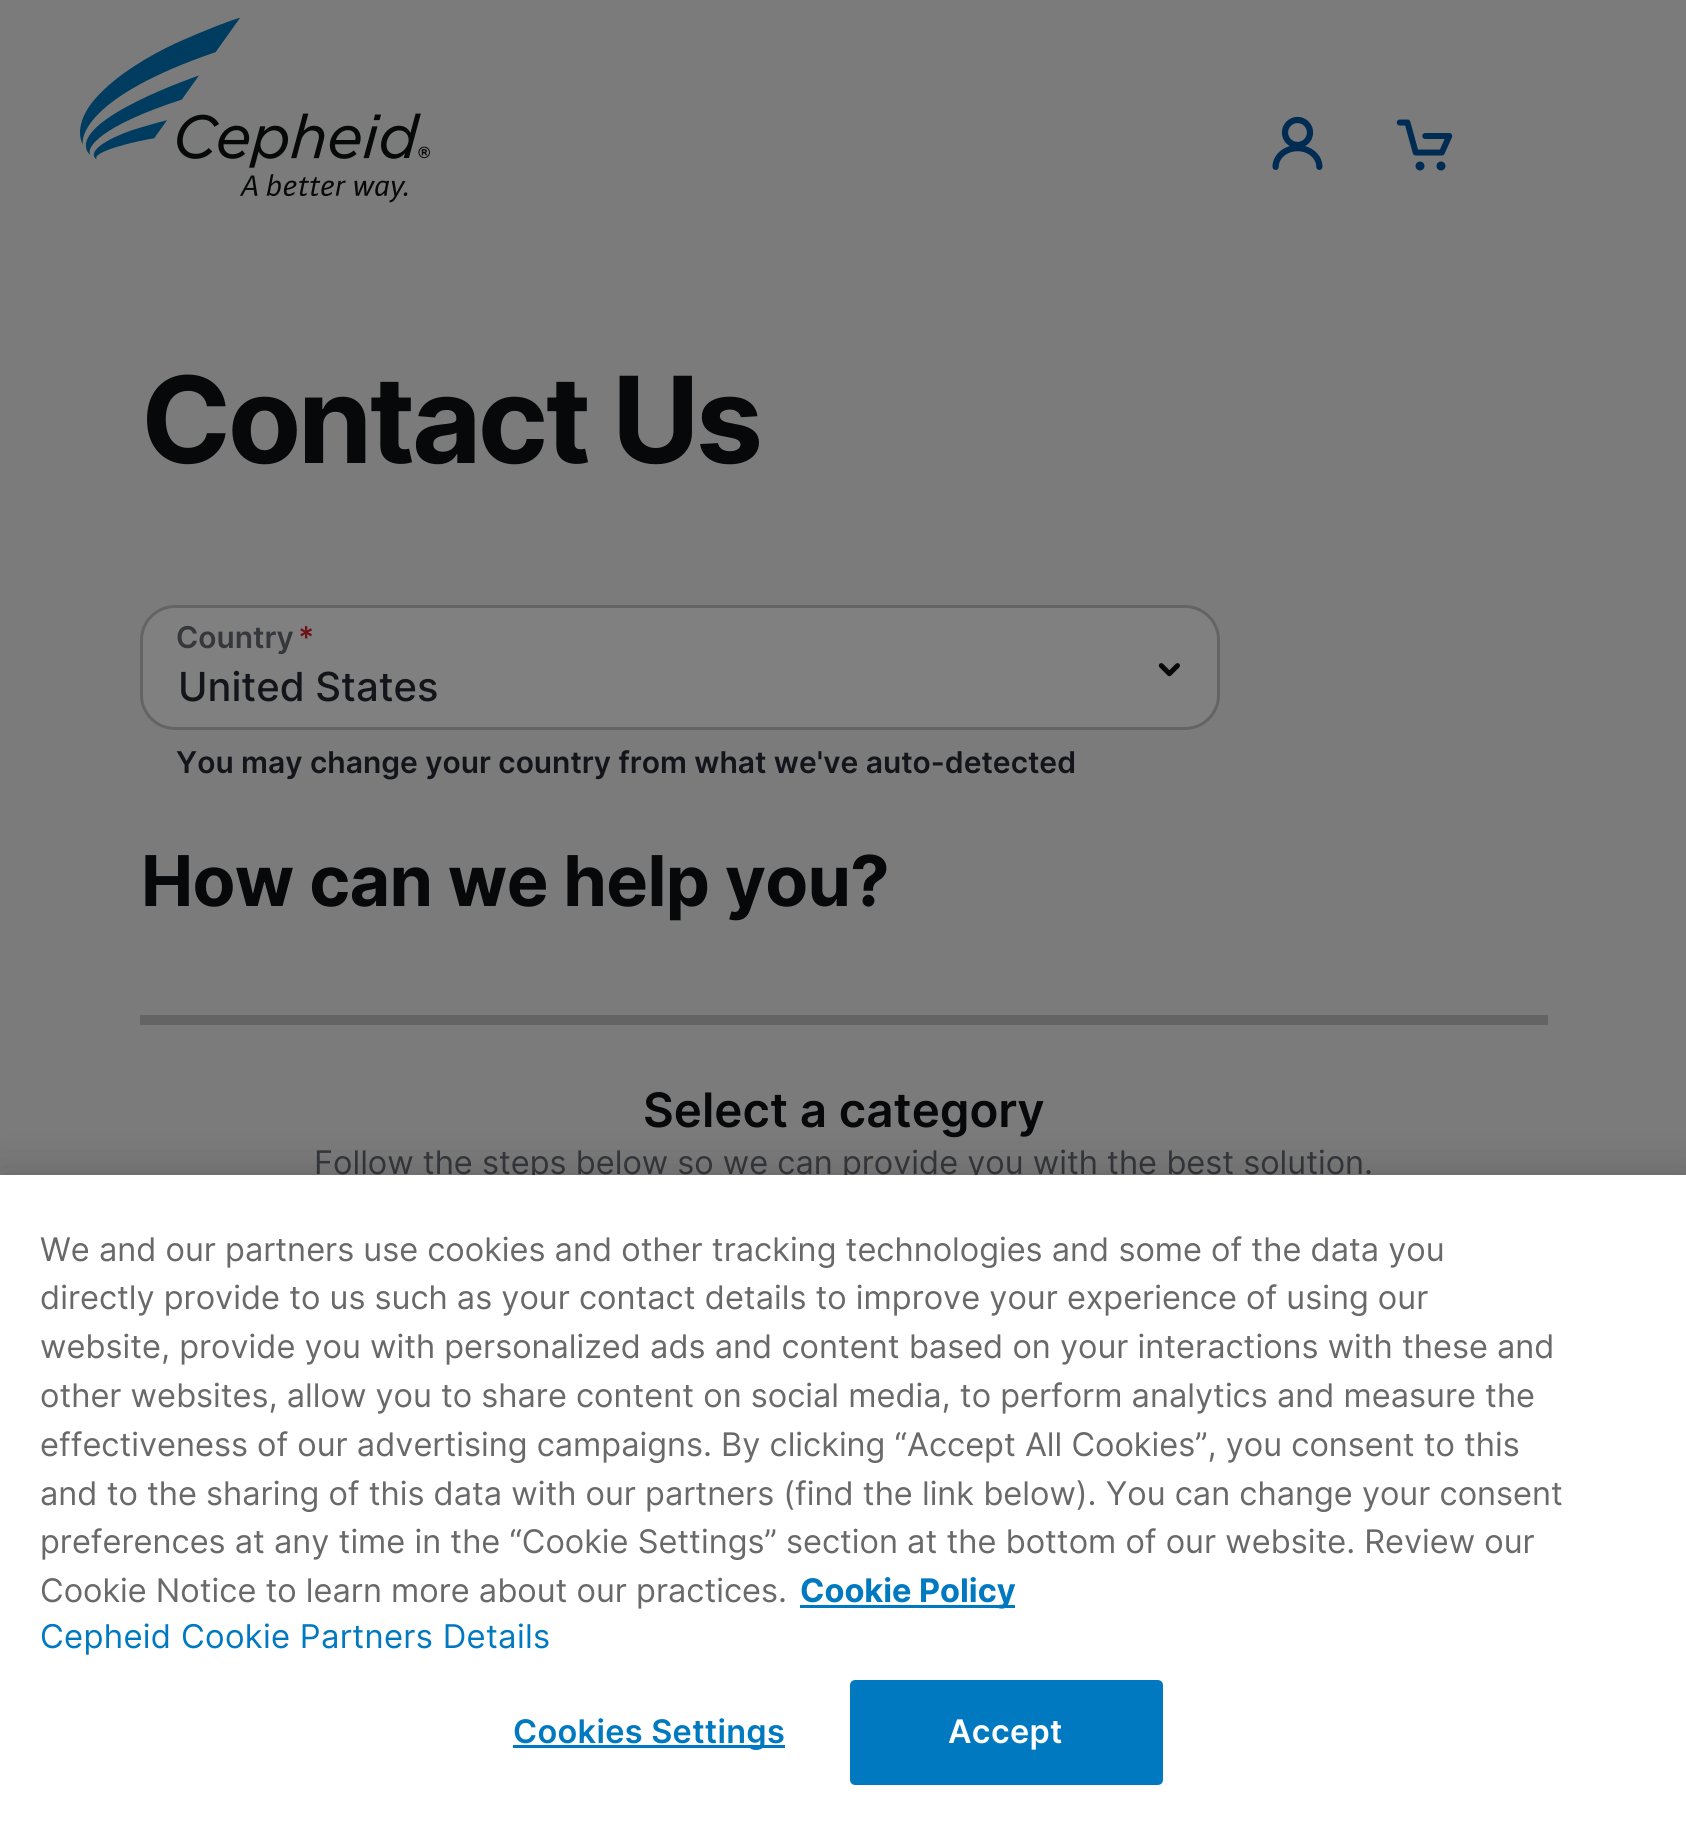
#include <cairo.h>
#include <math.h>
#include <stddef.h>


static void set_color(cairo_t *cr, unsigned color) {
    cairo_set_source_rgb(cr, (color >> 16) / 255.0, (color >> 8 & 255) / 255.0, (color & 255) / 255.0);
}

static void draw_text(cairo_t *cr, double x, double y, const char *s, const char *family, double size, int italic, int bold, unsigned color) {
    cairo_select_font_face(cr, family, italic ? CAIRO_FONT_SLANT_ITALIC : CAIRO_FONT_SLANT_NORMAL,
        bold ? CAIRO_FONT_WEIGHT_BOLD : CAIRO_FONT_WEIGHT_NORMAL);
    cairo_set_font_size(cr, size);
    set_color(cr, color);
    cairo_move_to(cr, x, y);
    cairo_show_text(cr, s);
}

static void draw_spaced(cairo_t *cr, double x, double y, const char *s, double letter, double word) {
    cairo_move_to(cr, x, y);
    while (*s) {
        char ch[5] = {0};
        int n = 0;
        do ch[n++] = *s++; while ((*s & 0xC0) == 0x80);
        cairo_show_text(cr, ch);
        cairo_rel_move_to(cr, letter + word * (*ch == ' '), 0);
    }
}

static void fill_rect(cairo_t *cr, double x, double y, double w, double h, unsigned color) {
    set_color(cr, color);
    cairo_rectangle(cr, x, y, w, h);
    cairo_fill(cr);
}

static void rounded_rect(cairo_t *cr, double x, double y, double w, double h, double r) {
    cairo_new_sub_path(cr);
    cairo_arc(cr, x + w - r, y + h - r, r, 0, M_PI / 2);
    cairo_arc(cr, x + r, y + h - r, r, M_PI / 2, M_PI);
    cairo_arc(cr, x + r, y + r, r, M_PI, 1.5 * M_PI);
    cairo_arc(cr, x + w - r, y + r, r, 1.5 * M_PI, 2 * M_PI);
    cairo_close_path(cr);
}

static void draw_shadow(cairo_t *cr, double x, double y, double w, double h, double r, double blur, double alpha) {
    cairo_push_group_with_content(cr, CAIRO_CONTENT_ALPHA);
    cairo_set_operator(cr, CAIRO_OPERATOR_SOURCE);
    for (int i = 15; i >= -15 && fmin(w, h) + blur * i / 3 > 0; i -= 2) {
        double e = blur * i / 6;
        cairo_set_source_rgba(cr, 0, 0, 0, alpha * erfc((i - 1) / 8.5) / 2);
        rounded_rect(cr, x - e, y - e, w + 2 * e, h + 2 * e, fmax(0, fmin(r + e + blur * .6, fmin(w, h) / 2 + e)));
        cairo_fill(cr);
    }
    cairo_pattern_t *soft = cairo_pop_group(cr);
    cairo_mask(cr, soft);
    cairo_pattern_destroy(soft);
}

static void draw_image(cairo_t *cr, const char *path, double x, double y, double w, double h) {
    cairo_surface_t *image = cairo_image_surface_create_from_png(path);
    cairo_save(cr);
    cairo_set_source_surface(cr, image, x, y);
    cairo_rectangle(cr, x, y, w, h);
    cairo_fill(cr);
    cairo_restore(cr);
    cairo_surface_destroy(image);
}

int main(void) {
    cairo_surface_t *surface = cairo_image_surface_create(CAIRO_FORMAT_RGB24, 1686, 1825);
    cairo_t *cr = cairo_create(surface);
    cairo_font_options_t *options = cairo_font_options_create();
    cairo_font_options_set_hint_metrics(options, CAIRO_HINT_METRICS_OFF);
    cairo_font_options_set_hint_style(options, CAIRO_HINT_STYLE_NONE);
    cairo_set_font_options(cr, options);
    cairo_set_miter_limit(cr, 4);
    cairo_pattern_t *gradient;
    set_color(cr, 0xFFFFFF);
    cairo_paint(cr);
    gradient = cairo_pattern_create_radial(0, 0, 0, 0, 0, 1);
    cairo_pattern_set_matrix(gradient, &(cairo_matrix_t){1.0 / 1439, 0, 0, 1.0 / 4386, -1.0 * 469 / 1439, -1.0 * 5413 / 4386});
    cairo_pattern_add_color_stop_rgba(gradient, 0, 0.451, 0.463, 0.471, 1);
    cairo_pattern_add_color_stop_rgba(gradient, 1, 0.482, 0.482, 0.482, 1);
    cairo_set_source(cr, gradient);
    cairo_pattern_destroy(gradient);
    cairo_rectangle(cr, 0, 0, 1686, 1175);
    cairo_fill(cr);
    draw_image(cr, "assets/img1.png", 80, 18, 350, 185);
    draw_image(cr, "assets/img2.png", 1272, 116, 51, 54);
    draw_image(cr, "assets/img3.png", 1396, 119, 57, 52);
    cairo_select_font_face(cr, "Inter", CAIRO_FONT_SLANT_NORMAL, CAIRO_FONT_WEIGHT_BOLD);
    cairo_set_font_size(cr, 120);
    set_color(cr, 0x070809);
    draw_spaced(cr, 141, 463, "Contact Us", -3.6, 0);
    set_color(cr, 0x808080);
    rounded_rect(cr, 141.5, 606.5, 1077, 122, 33.5);
    cairo_fill_preserve(cr);
    set_color(cr, 0x646465);
    cairo_set_line_width(cr, 3);
    cairo_stroke(cr);
    draw_text(cr, 176, 648, "Country", "Inter SemiBold", 30, 0, 0, 0x35373C);
    draw_text(cr, 298, 648, "*", "Inter SemiBold", 30, 0, 0, 0x6D1419);
    draw_text(cr, 178, 701, "United States", "Inter Medium", 40, 0, 0, 0x13151A);
    draw_image(cr, "assets/img4.png", 1158, 663, 22, 14);
    draw_text(cr, 176, 773, "You may change your country from what we've auto-detected", "Inter SemiBold", 30, 0, 0, 0x13151A);
    cairo_select_font_face(cr, "Inter", CAIRO_FONT_SLANT_NORMAL, CAIRO_FONT_WEIGHT_BOLD);
    cairo_set_font_size(cr, 70);
    set_color(cr, 0x070809);
    draw_spaced(cr, 141, 906, "How can we help you?", -0.7, 0);
    fill_rect(cr, 140, 1015, 1408, 10, 0x646465);
    draw_text(cr, 643, 1127, "Select a category", "Inter SemiBold", 47.5, 0, 0, 0x070809);
    draw_text(cr, 314, 1174, "Follow the steps below so we can provide you with the best solution.", "Inter", 32.5, 0, 0, 0x35373C);
    set_color(cr, 0x000000);
    draw_shadow(cr, 0, 1175, 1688, 650, 0, 22.5, 0.2);
    fill_rect(cr, 0, 1175, 1686, 650, 0xFFFFFF);
    draw_text(cr, 40, 1261, "We and our partners use cookies and other tracking technologies and some of the data you", "Inter", 32.5, 0, 0, 0x696969);
    draw_text(cr, 40, 1309, "directly provide to us such as your contact details to improve your experience of using our", "Inter", 32.5, 0, 0, 0x696969);
    draw_text(cr, 40, 1358, "website, provide you with personalized ads and content based on your interactions with these and", "Inter", 32.5, 0, 0, 0x696969);
    draw_text(cr, 40, 1407, "other websites, allow you to share content on social media, to perform analytics and measure the", "Inter", 32.5, 0, 0, 0x696969);
    draw_text(cr, 40, 1456, "effectiveness of our advertising campaigns. By clicking “Accept All Cookies”, you consent to this", "Inter", 32.5, 0, 0, 0x696969);
    draw_text(cr, 40, 1505, "and to the sharing of this data with our partners (find the link below). You can change your consent", "Inter", 32.5, 0, 0, 0x696969);
    draw_text(cr, 40, 1553, "preferences at any time in the “Cookie Settings” section at the bottom of our website. Review our", "Inter", 32.5, 0, 0, 0x696969);
    draw_text(cr, 40, 1602, "Cookie Notice to learn more about our practices.", "Inter", 32.5, 0, 0, 0x696969);
    fill_rect(cr, 800, 1605, 215, 3, 0x0079C1);
    draw_text(cr, 800, 1602, "Cookie Policy", "Inter", 32.5, 0, 1, 0x0079C1);
    cairo_select_font_face(cr, "Inter", CAIRO_FONT_SLANT_NORMAL, CAIRO_FONT_WEIGHT_NORMAL);
    cairo_set_font_size(cr, 32.75);
    draw_spaced(cr, 40, 1648, "Cepheid Cookie Partners Details", 0.3, 0);
    fill_rect(cr, 513, 1745, 272, 3, 0x0079C1);
    cairo_select_font_face(cr, "Inter SemiBold", CAIRO_FONT_SLANT_NORMAL, CAIRO_FONT_WEIGHT_NORMAL);
    cairo_set_font_size(cr, 32.5);
    draw_spaced(cr, 513, 1743, "Cookies Settings", 0.3, 0);
    rounded_rect(cr, 851.5, 1681.5, 310, 102, 3.5);
    cairo_fill_preserve(cr);
    cairo_stroke(cr);
    set_color(cr, 0xFFFFFF);
    draw_spaced(cr, 948, 1743, "Accept", 0.3, 0);
    cairo_surface_write_to_png(surface, "output.png");
    cairo_font_options_destroy(options);
    cairo_destroy(cr);
    cairo_surface_destroy(surface);
    return 0;
}
